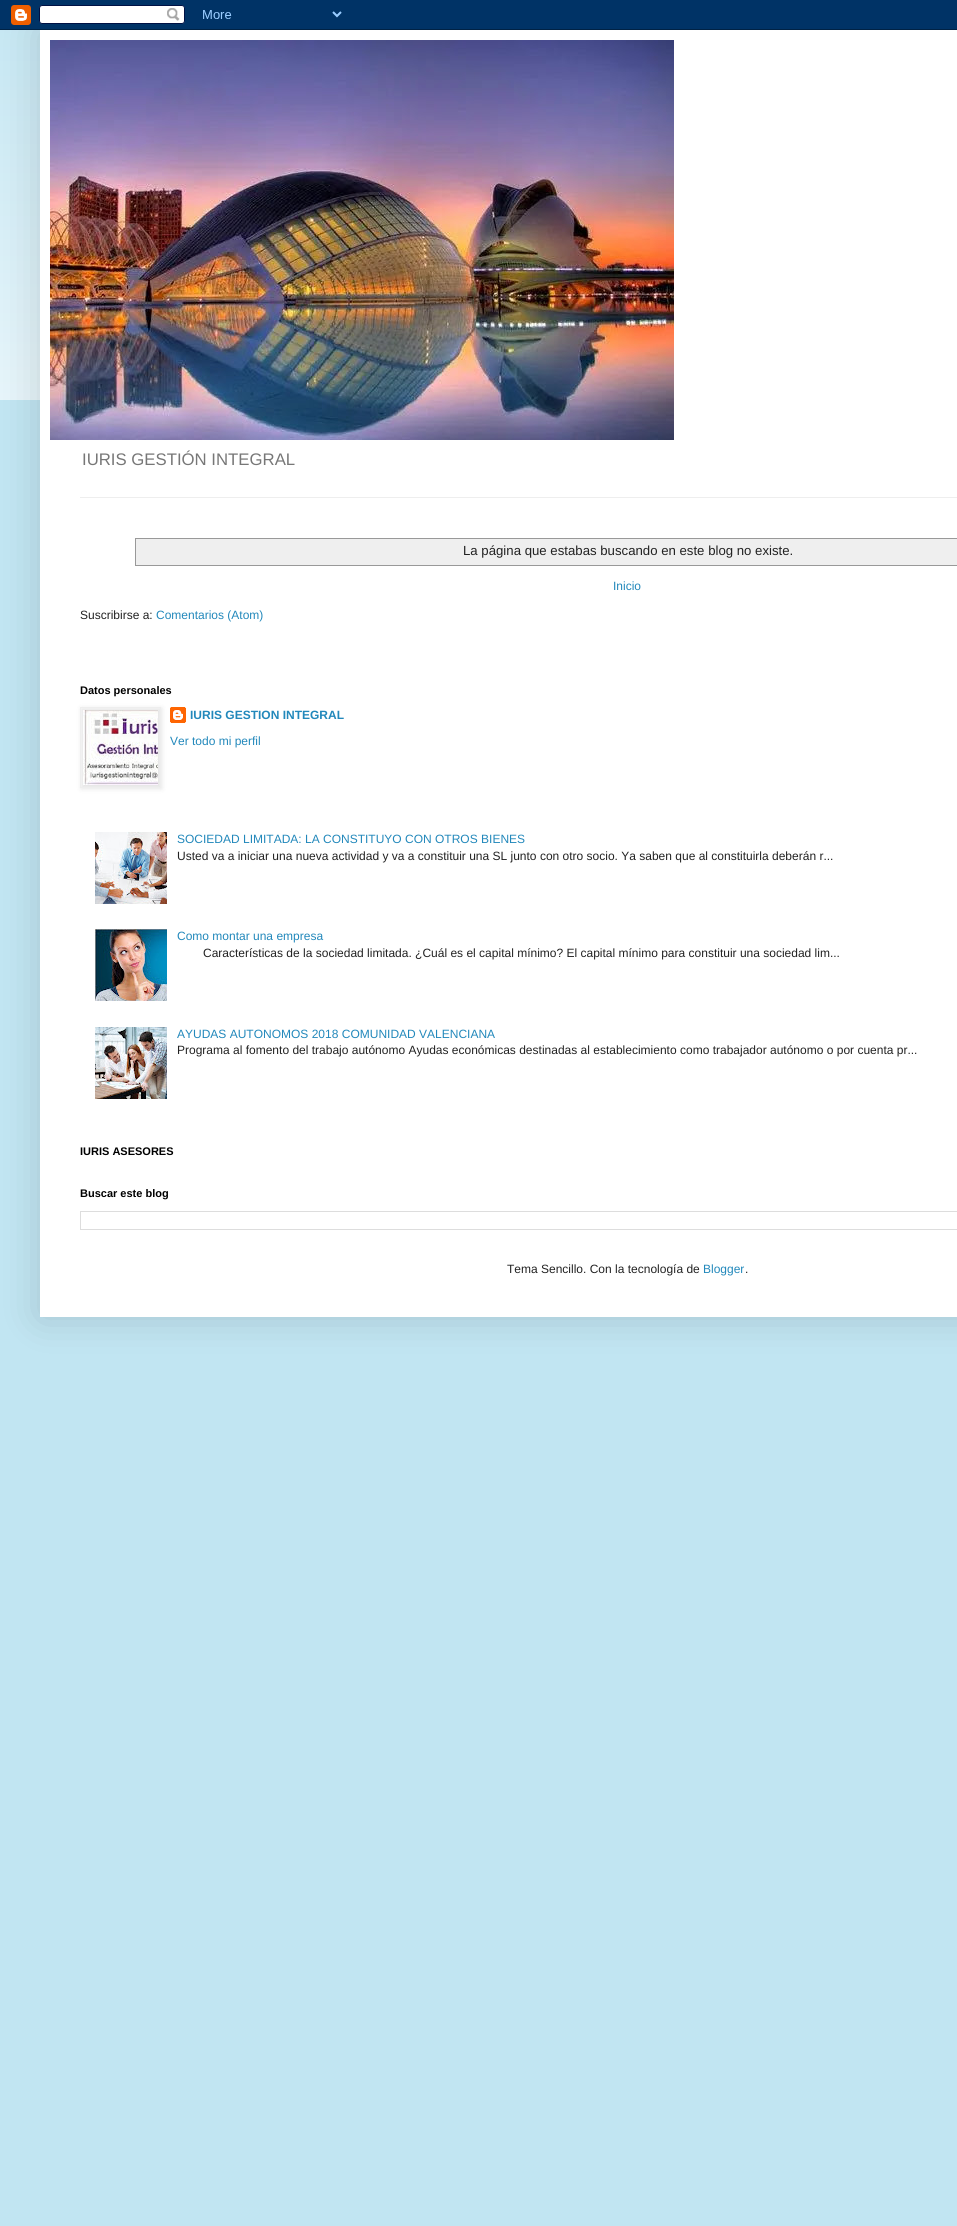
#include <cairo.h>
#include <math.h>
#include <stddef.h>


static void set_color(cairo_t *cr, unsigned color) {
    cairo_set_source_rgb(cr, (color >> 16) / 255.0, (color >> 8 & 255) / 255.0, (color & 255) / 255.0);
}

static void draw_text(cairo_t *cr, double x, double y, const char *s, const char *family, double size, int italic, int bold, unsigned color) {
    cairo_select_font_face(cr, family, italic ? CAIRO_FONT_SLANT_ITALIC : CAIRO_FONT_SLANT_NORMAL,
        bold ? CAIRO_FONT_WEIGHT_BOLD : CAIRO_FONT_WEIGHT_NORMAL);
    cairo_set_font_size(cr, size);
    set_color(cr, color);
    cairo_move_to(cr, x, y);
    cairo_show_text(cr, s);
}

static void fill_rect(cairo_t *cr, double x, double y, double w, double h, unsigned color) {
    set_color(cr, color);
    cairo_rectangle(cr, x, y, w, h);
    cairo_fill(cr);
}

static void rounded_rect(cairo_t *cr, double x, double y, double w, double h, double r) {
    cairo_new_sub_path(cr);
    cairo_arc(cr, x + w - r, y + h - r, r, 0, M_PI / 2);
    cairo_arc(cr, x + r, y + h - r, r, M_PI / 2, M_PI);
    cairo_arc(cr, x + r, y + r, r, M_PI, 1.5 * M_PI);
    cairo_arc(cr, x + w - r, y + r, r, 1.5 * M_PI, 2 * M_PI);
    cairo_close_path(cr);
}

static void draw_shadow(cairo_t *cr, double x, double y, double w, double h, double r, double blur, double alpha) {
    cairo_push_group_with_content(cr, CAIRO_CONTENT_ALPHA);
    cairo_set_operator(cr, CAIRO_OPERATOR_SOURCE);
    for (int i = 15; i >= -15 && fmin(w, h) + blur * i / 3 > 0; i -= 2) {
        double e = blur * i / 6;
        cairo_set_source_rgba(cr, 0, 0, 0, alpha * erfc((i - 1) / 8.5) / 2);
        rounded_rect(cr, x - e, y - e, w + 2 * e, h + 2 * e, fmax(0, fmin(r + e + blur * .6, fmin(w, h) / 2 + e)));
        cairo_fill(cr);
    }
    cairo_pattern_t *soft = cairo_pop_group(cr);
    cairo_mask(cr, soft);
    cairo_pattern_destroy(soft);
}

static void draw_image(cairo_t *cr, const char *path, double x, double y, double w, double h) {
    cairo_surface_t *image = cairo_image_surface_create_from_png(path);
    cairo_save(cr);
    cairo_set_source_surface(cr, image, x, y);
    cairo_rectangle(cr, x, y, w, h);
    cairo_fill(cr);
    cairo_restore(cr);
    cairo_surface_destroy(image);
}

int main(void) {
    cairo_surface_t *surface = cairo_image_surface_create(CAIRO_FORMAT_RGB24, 957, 2226);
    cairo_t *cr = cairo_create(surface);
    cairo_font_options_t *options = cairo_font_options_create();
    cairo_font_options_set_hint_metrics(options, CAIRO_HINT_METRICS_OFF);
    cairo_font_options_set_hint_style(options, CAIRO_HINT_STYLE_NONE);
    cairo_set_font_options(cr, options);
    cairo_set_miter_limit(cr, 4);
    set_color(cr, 0xC1E5F2);
    cairo_paint(cr);
    draw_image(cr, "assets/img2.png", 0, 30, 40, 370);
    set_color(cr, 0x000000);
    draw_shadow(cr, 40, 30, 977, 1287, 0, 20, 0.15);
    draw_image(cr, "assets/img1.png", 0, 0, 957, 30);
    fill_rect(cr, 40, 30, 917, 1287, 0xFFFFFF);
    draw_image(cr, "assets/img3.png", 50, 40, 624, 400);
    draw_text(cr, 82, 465, "IURIS GESTIÓN INTEGRAL", "Liberation Sans", 16.75, 0, 0, 0x777777);
    fill_rect(cr, 80, 497, 877, 1, 0xEEEEEE);
    cairo_rectangle(cr, 135.5, 538.5, 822, 27);
    set_color(cr, 0x999999);
    cairo_set_line_width(cr, 1);
    cairo_stroke(cr);
    fill_rect(cr, 136, 539, 821, 26, 0xEFEFEF);
    draw_text(cr, 463, 555, "La página que estabas buscando en este blog no existe.", "Liberation Sans", 13.2, 0, 0, 0x222222);
    draw_text(cr, 613, 590, "Inicio", "Liberation Sans", 12, 0, 0, 0x2288BB);
    draw_text(cr, 80, 619, "Suscribirse a:", "Liberation Sans", 12, 0, 0, 0x222222);
    draw_text(cr, 156, 619, "Comentarios (Atom)", "Liberation Sans", 12, 0, 0, 0x2288BB);
    draw_text(cr, 80, 694, "Datos personales", "Liberation Sans", 11, 0, 1, 0x000000);
    draw_image(cr, "assets/img5.png", 170, 707, 16, 16);
    set_color(cr, 0x000000);
    draw_shadow(cr, 81, 708, 81, 81, 0, 2.5, 0.1);
    cairo_rectangle(cr, 80.5, 707.5, 80, 80);
    set_color(cr, 0xEEEEEE);
    cairo_stroke(cr);
    draw_image(cr, "assets/img4.png", 83, 710, 75, 75);
    draw_text(cr, 190, 719, "IURIS GESTION INTEGRAL", "Liberation Sans", 12, 0, 1, 0x2288BB);
    draw_text(cr, 170, 745, "Ver todo mi perfil", "Liberation Sans", 12, 0, 0, 0x2288BB);
    draw_image(cr, "assets/img6.png", 95, 832, 72, 72);
    draw_text(cr, 177, 843, "SOCIEDAD LIMITADA: LA CONSTITUYO CON OTROS BIENES", "Liberation Sans", 12, 0, 0, 0x2288BB);
    draw_text(cr, 177, 860, "Usted va a iniciar una nueva actividad y va a constituir una SL junto con otro socio. Ya saben que al constituirla deberán r...", "Liberation Sans", 12, 0, 0, 0x222222);
    draw_image(cr, "assets/img7.png", 95, 929, 72, 72);
    draw_text(cr, 177, 940, "Como montar una empresa", "Liberation Sans", 12, 0, 0, 0x2288BB);
    draw_text(cr, 203, 957, "Características de la sociedad limitada. ¿Cuál es el capital mínimo? El capital mínimo para constituir una sociedad lim...", "Liberation Sans", 12, 0, 0, 0x222222);
    draw_image(cr, "assets/img8.png", 95, 1027, 72, 72);
    draw_text(cr, 177, 1038, "AYUDAS AUTONOMOS 2018 COMUNIDAD VALENCIANA", "Liberation Sans", 12, 0, 0, 0x2288BB);
    draw_text(cr, 177, 1054, "Programa al fomento del trabajo autónomo Ayudas económicas destinadas al establecimiento como trabajador autónomo o por cuenta pr...", "Liberation Sans", 12, 0, 0, 0x222222);
    draw_text(cr, 80, 1155, "IURIS ASESORES", "Liberation Sans", 11, 0, 1, 0x000000);
    draw_text(cr, 80, 1197, "Buscar este blog", "Liberation Sans", 11, 0, 1, 0x000000);
    cairo_rectangle(cr, 80.5, 1211.5, 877, 18);
    set_color(cr, 0xDDDDDD);
    cairo_stroke(cr);
    draw_text(cr, 507, 1273, "Tema Sencillo. Con la tecnología de", "Liberation Sans", 12, 0, 0, 0x222222);
    draw_text(cr, 703, 1273, "Blogger", "Liberation Sans", 12, 0, 0, 0x2288BB);
    draw_text(cr, 745, 1273, ".", "Liberation Sans", 12, 0, 0, 0x222222);
    cairo_surface_write_to_png(surface, "output.png");
    cairo_font_options_destroy(options);
    cairo_destroy(cr);
    cairo_surface_destroy(surface);
    return 0;
}
